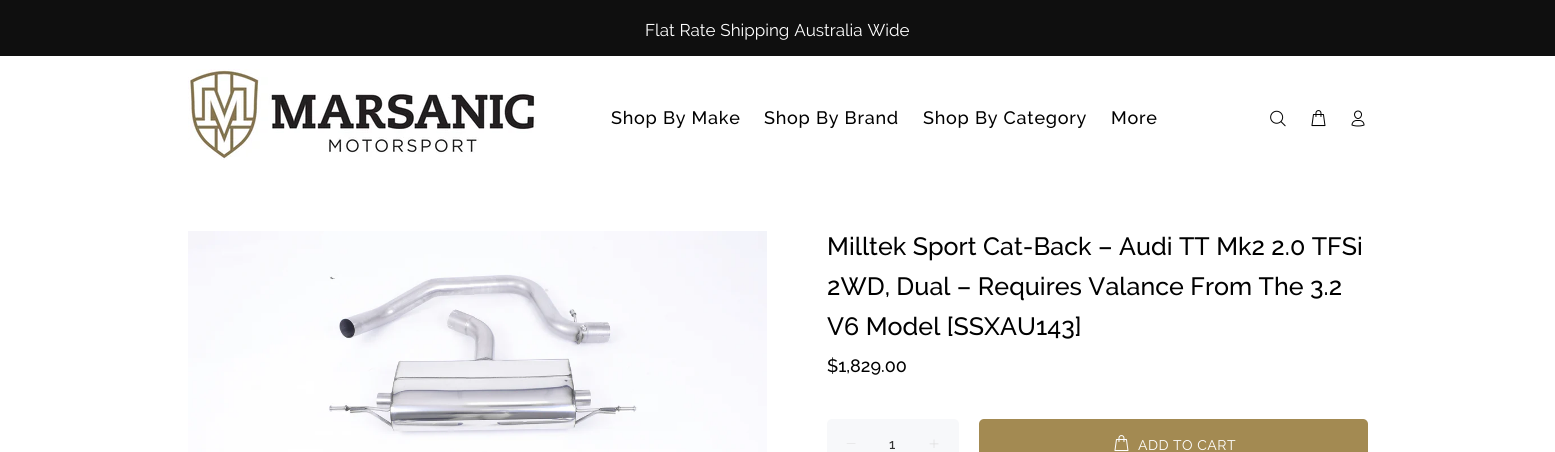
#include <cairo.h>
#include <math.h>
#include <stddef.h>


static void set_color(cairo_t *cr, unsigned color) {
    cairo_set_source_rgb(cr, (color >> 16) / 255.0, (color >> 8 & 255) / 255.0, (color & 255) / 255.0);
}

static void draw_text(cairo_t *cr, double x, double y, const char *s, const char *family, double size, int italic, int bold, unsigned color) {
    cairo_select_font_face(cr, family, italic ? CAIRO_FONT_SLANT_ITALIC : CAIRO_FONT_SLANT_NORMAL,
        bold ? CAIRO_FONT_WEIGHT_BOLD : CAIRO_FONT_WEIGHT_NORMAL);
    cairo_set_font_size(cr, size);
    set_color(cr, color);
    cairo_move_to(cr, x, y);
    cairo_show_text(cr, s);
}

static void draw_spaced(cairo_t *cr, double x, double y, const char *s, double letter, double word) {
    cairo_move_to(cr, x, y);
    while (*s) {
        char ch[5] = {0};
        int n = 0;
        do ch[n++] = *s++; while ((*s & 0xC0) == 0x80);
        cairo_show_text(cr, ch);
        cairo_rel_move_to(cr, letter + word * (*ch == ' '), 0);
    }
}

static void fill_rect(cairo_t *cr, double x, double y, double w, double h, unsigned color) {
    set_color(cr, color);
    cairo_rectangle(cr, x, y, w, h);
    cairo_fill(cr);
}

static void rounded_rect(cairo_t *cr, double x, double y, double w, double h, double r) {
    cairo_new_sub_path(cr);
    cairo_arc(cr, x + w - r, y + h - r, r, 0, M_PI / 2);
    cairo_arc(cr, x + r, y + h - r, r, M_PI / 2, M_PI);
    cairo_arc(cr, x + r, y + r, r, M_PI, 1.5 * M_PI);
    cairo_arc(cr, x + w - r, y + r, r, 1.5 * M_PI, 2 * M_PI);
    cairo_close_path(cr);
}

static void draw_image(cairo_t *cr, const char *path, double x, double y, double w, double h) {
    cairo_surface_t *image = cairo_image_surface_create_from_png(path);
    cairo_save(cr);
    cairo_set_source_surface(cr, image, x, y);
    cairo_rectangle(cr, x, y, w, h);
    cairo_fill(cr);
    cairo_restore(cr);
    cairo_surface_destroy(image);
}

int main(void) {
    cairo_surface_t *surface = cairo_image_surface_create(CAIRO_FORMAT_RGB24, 1555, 452);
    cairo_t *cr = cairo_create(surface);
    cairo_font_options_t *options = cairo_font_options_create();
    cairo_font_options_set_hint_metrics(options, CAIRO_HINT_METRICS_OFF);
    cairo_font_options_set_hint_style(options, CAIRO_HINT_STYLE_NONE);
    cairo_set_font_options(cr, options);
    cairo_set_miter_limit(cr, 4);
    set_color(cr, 0xFFFFFF);
    cairo_paint(cr);
    fill_rect(cr, 0, 0, 1555, 56, 0x0F0F0F);
    cairo_select_font_face(cr, "Raleway", CAIRO_FONT_SLANT_NORMAL, CAIRO_FONT_WEIGHT_NORMAL);
    cairo_set_font_size(cr, 17);
    set_color(cr, 0xFFFFFF);
    draw_spaced(cr, 645, 36, "Flat Rate Shipping Australia Wide", 0, 0.5);
    draw_image(cr, "assets/img1.png", 188, 69, 348, 91);
    cairo_select_font_face(cr, "Raleway Medium", CAIRO_FONT_SLANT_NORMAL, CAIRO_FONT_WEIGHT_NORMAL);
    cairo_set_font_size(cr, 18);
    set_color(cr, 0x000000);
    draw_spaced(cr, 611, 124, "Shop By Make", 0.75, 0);
    draw_spaced(cr, 764, 124, "Shop By Brand", 0.75, 0);
    draw_spaced(cr, 923, 124, "Shop By Category", 0.75, 0);
    draw_spaced(cr, 1111, 124, "More", 0.75, 0);
    draw_image(cr, "assets/img2.png", 1270, 110, 16, 17);
    draw_image(cr, "assets/img3.png", 1311, 110, 15, 17);
    draw_image(cr, "assets/img4.png", 1351, 110, 14, 17);
    draw_image(cr, "assets/img5.png", 188, 231, 579, 221);
    cairo_set_font_size(cr, 25);
    draw_spaced(cr, 827, 255, "Milltek Sport Cat-Back – Audi TT Mk2 2.0 TFSi", 0.05, 0);
    draw_spaced(cr, 827, 295, "2WD, Dual – Requires Valance From The 3.2", 0.05, 0);
    draw_spaced(cr, 827, 335, "V6 Model [SSXAU143]", 0.05, 0);
    draw_text(cr, 827, 372, "$1,829.00", "Raleway Medium", 18, 0, 0, 0x000000);
    set_color(cr, 0xF7F8FA);
    rounded_rect(cr, 827, 419, 132, 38, 5);
    cairo_fill(cr);
    set_color(cr, 0xD8D8D8);
    cairo_new_path(cr);
    cairo_move_to(cr, 855.5, 443.5);
    cairo_line_to(cr, 855.5, 444);
    cairo_line_to(cr, 846.5, 444);
    cairo_line_to(cr, 847, 443.5);
    cairo_close_path(cr);
    cairo_fill(cr);
    draw_text(cr, 889, 449, "1", "Raleway Medium", 14, 0, 0, 0x333333);
    draw_image(cr, "assets/img6.png", 929, 439, 10, 9);
    set_color(cr, 0xA38A52);
    rounded_rect(cr, 979, 419, 389, 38, 5);
    cairo_fill(cr);
    draw_image(cr, "assets/img7.png", 1114, 435, 15, 17);
    cairo_select_font_face(cr, "Raleway", CAIRO_FONT_SLANT_NORMAL, CAIRO_FONT_WEIGHT_NORMAL);
    set_color(cr, 0xFFFFFF);
    draw_spaced(cr, 1138, 450, "ADD TO CART", 0.5, 0);
    cairo_surface_write_to_png(surface, "output.png");
    cairo_font_options_destroy(options);
    cairo_destroy(cr);
    cairo_surface_destroy(surface);
    return 0;
}
